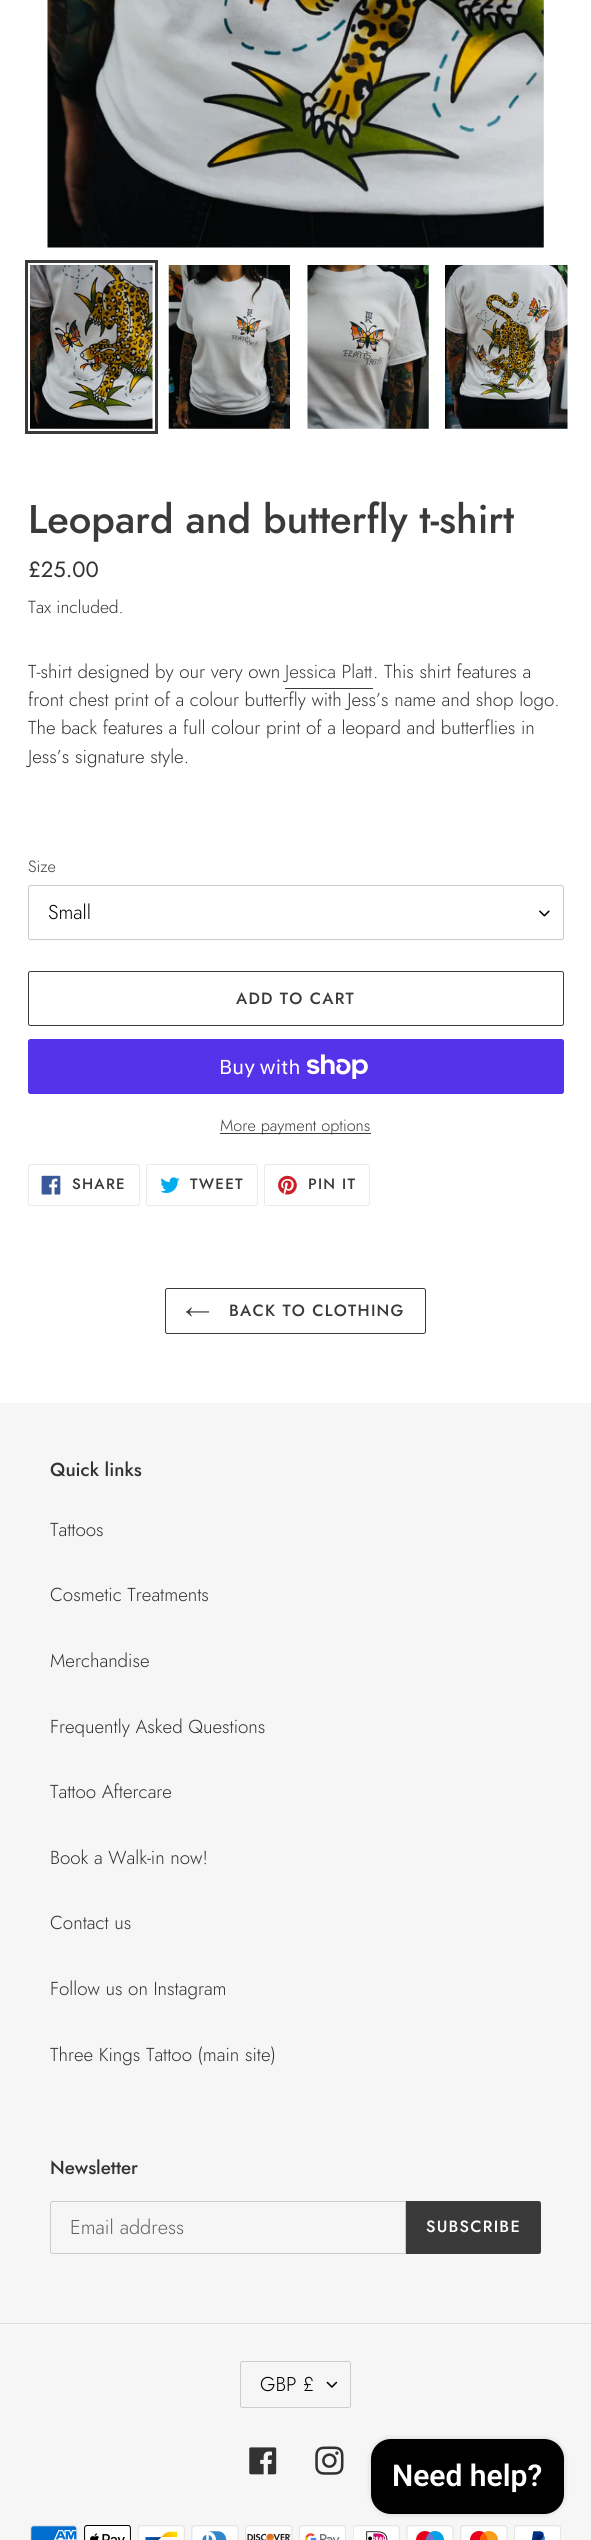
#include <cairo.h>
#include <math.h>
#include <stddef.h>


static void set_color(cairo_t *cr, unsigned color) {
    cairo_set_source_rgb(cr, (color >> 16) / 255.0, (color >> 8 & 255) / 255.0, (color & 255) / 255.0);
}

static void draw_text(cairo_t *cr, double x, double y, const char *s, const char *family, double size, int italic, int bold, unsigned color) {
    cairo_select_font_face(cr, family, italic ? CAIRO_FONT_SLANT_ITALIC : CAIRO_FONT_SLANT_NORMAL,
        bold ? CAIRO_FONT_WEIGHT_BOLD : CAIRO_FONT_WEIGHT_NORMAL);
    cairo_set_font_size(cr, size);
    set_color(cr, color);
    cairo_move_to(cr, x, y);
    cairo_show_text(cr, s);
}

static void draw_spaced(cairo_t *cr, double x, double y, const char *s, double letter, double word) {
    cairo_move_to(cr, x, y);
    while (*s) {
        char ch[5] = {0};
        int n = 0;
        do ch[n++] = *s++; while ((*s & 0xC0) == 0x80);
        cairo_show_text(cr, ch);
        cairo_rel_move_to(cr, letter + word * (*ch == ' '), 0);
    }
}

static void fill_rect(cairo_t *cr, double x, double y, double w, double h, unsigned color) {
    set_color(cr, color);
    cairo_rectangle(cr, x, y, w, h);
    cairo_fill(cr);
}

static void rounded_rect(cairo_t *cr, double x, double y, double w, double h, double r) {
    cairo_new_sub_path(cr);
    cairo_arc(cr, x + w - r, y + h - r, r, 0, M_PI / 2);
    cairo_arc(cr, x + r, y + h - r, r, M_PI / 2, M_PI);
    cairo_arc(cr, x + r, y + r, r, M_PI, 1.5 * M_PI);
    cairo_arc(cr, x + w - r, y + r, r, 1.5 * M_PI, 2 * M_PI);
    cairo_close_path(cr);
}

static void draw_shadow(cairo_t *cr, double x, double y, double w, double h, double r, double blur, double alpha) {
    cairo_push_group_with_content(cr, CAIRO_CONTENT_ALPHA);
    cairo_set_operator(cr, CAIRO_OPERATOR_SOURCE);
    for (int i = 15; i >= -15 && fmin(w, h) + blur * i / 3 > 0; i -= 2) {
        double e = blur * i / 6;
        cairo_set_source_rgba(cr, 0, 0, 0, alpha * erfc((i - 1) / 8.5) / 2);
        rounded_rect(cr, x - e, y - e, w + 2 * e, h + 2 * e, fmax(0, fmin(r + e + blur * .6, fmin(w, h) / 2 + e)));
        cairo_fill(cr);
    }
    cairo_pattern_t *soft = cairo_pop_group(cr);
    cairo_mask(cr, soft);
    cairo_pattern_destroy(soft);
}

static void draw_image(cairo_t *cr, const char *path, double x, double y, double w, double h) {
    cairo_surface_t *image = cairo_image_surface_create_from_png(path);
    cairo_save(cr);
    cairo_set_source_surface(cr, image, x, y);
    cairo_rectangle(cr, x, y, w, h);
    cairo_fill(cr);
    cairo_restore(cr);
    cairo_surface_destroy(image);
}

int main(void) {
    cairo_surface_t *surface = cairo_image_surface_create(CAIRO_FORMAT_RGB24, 591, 2540);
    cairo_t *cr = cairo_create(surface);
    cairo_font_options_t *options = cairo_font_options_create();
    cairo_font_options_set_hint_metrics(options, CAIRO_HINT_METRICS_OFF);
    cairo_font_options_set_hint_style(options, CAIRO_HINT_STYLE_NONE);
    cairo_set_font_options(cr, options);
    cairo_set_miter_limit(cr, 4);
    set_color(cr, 0xFFFFFF);
    cairo_paint(cr);
    draw_image(cr, "assets/img1.png", 47, 0, 497, 248);
    cairo_rectangle(cr, 26.5, 261.5, 130, 171);
    set_color(cr, 0x3A3A3A);
    cairo_set_line_width(cr, 3);
    cairo_stroke(cr);
    draw_image(cr, "assets/img2.png", 30, 265, 123, 164);
    draw_image(cr, "assets/img3.png", 168, 265, 122, 164);
    draw_image(cr, "assets/img4.png", 307, 265, 122, 164);
    draw_image(cr, "assets/img5.png", 445, 265, 123, 164);
    draw_text(cr, 28, 533, "Leopard and butterfly t-shirt", "Jost Medium", 40, 0, 0, 0x3A3A3A);
    draw_text(cr, 28, 577, "£25.00", "Jost", 22, 0, 0, 0x333232);
    draw_text(cr, 28, 613, "Tax included.", "Jost Light", 17.5, 0, 0, 0x333232);
    draw_text(cr, 28, 678, "T-shirt designed by our very own", "Jost Light", 18.75, 0, 0, 0x333232);
    draw_text(cr, 285, 678, "Jessica Platt", "Jost Light", 18.75, 0, 0, 0x3A3A3A);
    fill_rect(cr, 285, 688, 88, 1, 0x3A3A3A);
    draw_text(cr, 373, 678, ". This shirt features a", "Jost Light", 18.75, 0, 0, 0x333232);
    draw_text(cr, 28, 706, "front chest print of a colour butterfly with Jess’s name and shop logo.", "Jost Light", 18.75, 0, 0, 0x333232);
    draw_text(cr, 28, 734, "The back features a full colour print of a leopard and butterflies in", "Jost Light", 18.75, 0, 0, 0x333232);
    draw_text(cr, 28, 763, "Jess’s signature style.", "Jost Light", 18.75, 0, 0, 0x333232);
    draw_text(cr, 28, 872, "Size", "Jost Light", 16.25, 0, 0, 0x3A3A3A);
    draw_image(cr, "assets/img6.png", 539, 910, 11, 7);
    rounded_rect(cr, 28.5, 885.5, 535, 54, 2);
    set_color(cr, 0xCCCCCC);
    cairo_set_line_width(cr, 1);
    cairo_stroke(cr);
    draw_text(cr, 48, 919, "Small", "Jost Light", 20, 0, 0, 0x000000);
    rounded_rect(cr, 28.5, 971.5, 535, 54, 2);
    set_color(cr, 0x3A3A3A);
    cairo_stroke(cr);
    cairo_select_font_face(cr, "Jost Medium", CAIRO_FONT_SLANT_NORMAL, CAIRO_FONT_WEIGHT_NORMAL);
    cairo_set_font_size(cr, 16.25);
    draw_spaced(cr, 236, 1004, "ADD TO CART", 1.25, 0);
    set_color(cr, 0x5433EB);
    rounded_rect(cr, 28, 1039, 536, 55, 2.5);
    cairo_fill(cr);
    draw_text(cr, 219, 1074, "Buy with", "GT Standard", 20, 0, 0, 0xFFFFFF);
    draw_image(cr, "assets/img7.png", 306, 1054, 62, 25);
    fill_rect(cr, 220, 1133, 151, 1, 0x3A3A3A);
    draw_text(cr, 220, 1131, "More payment options", "Jost Light", 16.25, 0, 0, 0x3A3A3A);
    rounded_rect(cr, 28.5, 1164.5, 111, 41, 2);
    set_color(cr, 0xEBEBEB);
    cairo_stroke(cr);
    draw_image(cr, "assets/img8.png", 41, 1175, 20, 20);
    cairo_select_font_face(cr, "Jost Medium", CAIRO_FONT_SLANT_NORMAL, CAIRO_FONT_WEIGHT_NORMAL);
    cairo_set_font_size(cr, 15);
    set_color(cr, 0x3A3A3A);
    draw_spaced(cr, 72, 1189, "SHARE", 1.25, 0);
    rounded_rect(cr, 146.5, 1164.5, 111, 41, 2);
    set_color(cr, 0xEBEBEB);
    cairo_stroke(cr);
    draw_image(cr, "assets/img9.png", 160, 1177, 20, 16);
    set_color(cr, 0x3A3A3A);
    draw_spaced(cr, 190, 1189, "TWEET", 1.25, 0);
    rounded_rect(cr, 264.5, 1164.5, 105, 41, 2);
    set_color(cr, 0xEBEBEB);
    cairo_stroke(cr);
    draw_image(cr, "assets/img10.png", 278, 1175, 19, 20);
    set_color(cr, 0x3A3A3A);
    draw_spaced(cr, 308, 1189, "PIN IT", 1.25, 0);
    rounded_rect(cr, 165.5, 1288.5, 260, 45, 2);
    cairo_stroke(cr);
    draw_image(cr, "assets/img11.png", 186, 1307, 24, 10);
    cairo_set_font_size(cr, 16.25);
    draw_spaced(cr, 229, 1316, "BACK TO CLOTHING", 1.25, 0);
    fill_rect(cr, 0, 1403, 591, 1137, 0xF6F6F6);
    draw_text(cr, 50, 1476, "Quick links", "Jost Medium", 18.75, 0, 0, 0x333232);
    draw_text(cr, 50, 1536, "Tattoos", "Jost Light", 18.75, 0, 0, 0x333232);
    draw_text(cr, 50, 1601, "Cosmetic Treatments", "Jost Light", 18.75, 0, 0, 0x333232);
    draw_text(cr, 50, 1667, "Merchandise", "Jost Light", 18.75, 0, 0, 0x333232);
    draw_text(cr, 50, 1733, "Frequently Asked Questions", "Jost Light", 18.75, 0, 0, 0x333232);
    draw_text(cr, 50, 1798, "Tattoo Aftercare", "Jost Light", 18.75, 0, 0, 0x333232);
    draw_text(cr, 50, 1864, "Book a Walk-in now!", "Jost Light", 18.75, 0, 0, 0x333232);
    draw_text(cr, 50, 1929, "Contact us", "Jost Light", 18.75, 0, 0, 0x333232);
    draw_text(cr, 50, 1995, "Follow us on Instagram", "Jost Light", 18.75, 0, 0, 0x333232);
    draw_text(cr, 50, 2061, "Three Kings Tattoo (main site)", "Jost Light", 18.75, 0, 0, 0x333232);
    draw_text(cr, 50, 2174, "Newsletter", "Jost Medium", 18.75, 0, 0, 0x333232);
    cairo_new_path(cr);
    cairo_move_to(cr, 52.5, 2201.5);
    cairo_line_to(cr, 405.5, 2201.5);
    cairo_line_to(cr, 405.5, 2253.5);
    cairo_line_to(cr, 52.5, 2253.5);
    cairo_curve_to(cr, 51.5, 2253.5, 50.5, 2252.5, 50.5, 2251.5);
    cairo_line_to(cr, 50.5, 2203.5);
    cairo_curve_to(cr, 50.5, 2202.5, 51.5, 2201.5, 52.5, 2201.5);
    cairo_close_path(cr);
    set_color(cr, 0xCCCCCC);
    cairo_stroke(cr);
    draw_text(cr, 70, 2234, "Email address", "Jost Light", 20, 0, 0, 0x626262);
    set_color(cr, 0x3A3A3A);
    cairo_new_path(cr);
    cairo_move_to(cr, 406, 2201);
    cairo_line_to(cr, 538.5, 2201);
    cairo_curve_to(cr, 540, 2201, 541, 2202, 541, 2203.5);
    cairo_line_to(cr, 541, 2251.5);
    cairo_curve_to(cr, 541, 2253, 540, 2254, 538.5, 2254);
    cairo_line_to(cr, 406, 2254);
    cairo_close_path(cr);
    cairo_fill(cr);
    cairo_select_font_face(cr, "Jost Medium", CAIRO_FONT_SLANT_NORMAL, CAIRO_FONT_WEIGHT_NORMAL);
    cairo_set_font_size(cr, 16.25);
    set_color(cr, 0xFFFFFF);
    draw_spaced(cr, 426, 2232, "SUBSCRIBE", 1.25, 0);
    fill_rect(cr, 0, 2323, 591, 1, 0xDDDDDD);
    draw_image(cr, "assets/img12.png", 326, 2381, 12, 7);
    rounded_rect(cr, 240.5, 2361.5, 110, 46, 2);
    set_color(cr, 0xCCCCCC);
    cairo_stroke(cr);
    draw_text(cr, 260, 2391, "GBP £", "Jost Light", 20, 0, 0, 0x000000);
    draw_image(cr, "assets/img13.png", 249, 2447, 28, 28);
    draw_image(cr, "assets/img14.png", 315, 2446, 29, 29);
    draw_image(cr, "assets/img15.png", 30, 2525, 48, 15);
    draw_image(cr, "assets/img16.png", 84, 2525, 47, 15);
    draw_image(cr, "assets/img17.png", 138, 2525, 47, 15);
    draw_image(cr, "assets/img18.png", 191, 2525, 48, 15);
    draw_image(cr, "assets/img19.png", 245, 2525, 48, 15);
    draw_image(cr, "assets/img20.png", 299, 2525, 47, 15);
    draw_image(cr, "assets/img21.png", 353, 2525, 47, 15);
    draw_image(cr, "assets/img22.png", 406, 2525, 48, 15);
    draw_image(cr, "assets/img23.png", 460, 2525, 48, 15);
    draw_image(cr, "assets/img24.png", 514, 2525, 47, 15);
    set_color(cr, 0x000000);
    draw_shadow(cr, 371, 2439, 193, 75, 20, 3, 0.15);
    set_color(cr, 0x000000);
    rounded_rect(cr, 371, 2439, 193, 75, 20);
    cairo_fill(cr);
    draw_text(cr, 392, 2486, "Need help?", "Roboto SemiBold", 30, 0, 0, 0xFFFFFF);
    cairo_surface_write_to_png(surface, "output.png");
    cairo_font_options_destroy(options);
    cairo_destroy(cr);
    cairo_surface_destroy(surface);
    return 0;
}
